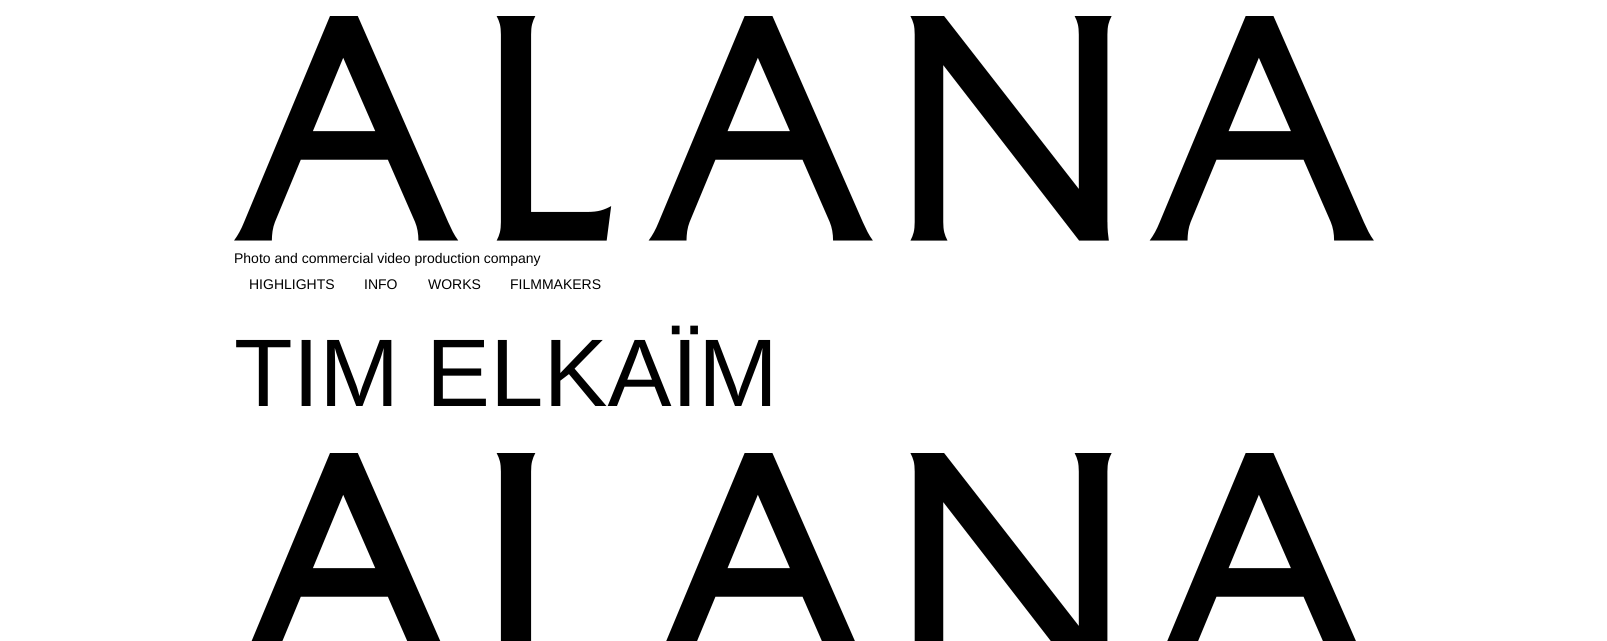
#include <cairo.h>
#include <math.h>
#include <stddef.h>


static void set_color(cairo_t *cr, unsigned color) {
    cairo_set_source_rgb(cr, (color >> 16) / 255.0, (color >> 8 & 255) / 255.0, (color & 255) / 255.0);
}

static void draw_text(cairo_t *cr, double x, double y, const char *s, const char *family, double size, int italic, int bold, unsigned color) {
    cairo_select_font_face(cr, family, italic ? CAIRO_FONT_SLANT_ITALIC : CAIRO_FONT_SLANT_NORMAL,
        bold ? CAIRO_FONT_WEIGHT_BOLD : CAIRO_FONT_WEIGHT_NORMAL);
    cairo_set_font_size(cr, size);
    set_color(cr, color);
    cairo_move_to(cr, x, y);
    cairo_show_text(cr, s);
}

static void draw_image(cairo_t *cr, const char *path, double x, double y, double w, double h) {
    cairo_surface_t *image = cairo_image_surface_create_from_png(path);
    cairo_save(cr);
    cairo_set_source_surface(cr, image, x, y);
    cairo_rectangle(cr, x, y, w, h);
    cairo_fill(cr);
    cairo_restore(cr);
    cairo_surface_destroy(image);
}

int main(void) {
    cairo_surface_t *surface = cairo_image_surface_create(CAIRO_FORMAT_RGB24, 1607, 641);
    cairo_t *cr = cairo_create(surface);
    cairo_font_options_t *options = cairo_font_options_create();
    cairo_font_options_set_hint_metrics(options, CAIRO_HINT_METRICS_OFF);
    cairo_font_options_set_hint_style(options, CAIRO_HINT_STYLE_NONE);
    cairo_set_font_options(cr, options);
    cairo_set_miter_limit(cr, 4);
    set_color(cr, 0xFFFFFF);
    cairo_paint(cr);
    draw_image(cr, "assets/img1.png", 234, 16, 1140, 225);
    draw_text(cr, 234, 263, "Photo and commercial video production company", "Liberation Sans", 14, 0, 0, 0x000000);
    draw_text(cr, 249, 289, "HIGHLIGHTS", "Liberation Sans", 14, 0, 0, 0x000000);
    draw_text(cr, 364, 289, "INFO", "Liberation Sans", 14, 0, 0, 0x000000);
    draw_text(cr, 428, 289, "WORKS", "Liberation Sans", 14, 0, 0, 0x000000);
    draw_text(cr, 510, 289, "FILMMAKERS", "Liberation Sans", 14, 0, 0, 0x000000);
    draw_text(cr, 234, 406, "TIM ELKAÏM", "Liberation Sans", 96, 0, 0, 0x000000);
    draw_image(cr, "assets/img2.png", 251, 453, 1105, 188);
    cairo_surface_write_to_png(surface, "output.png");
    cairo_font_options_destroy(options);
    cairo_destroy(cr);
    cairo_surface_destroy(surface);
    return 0;
}
